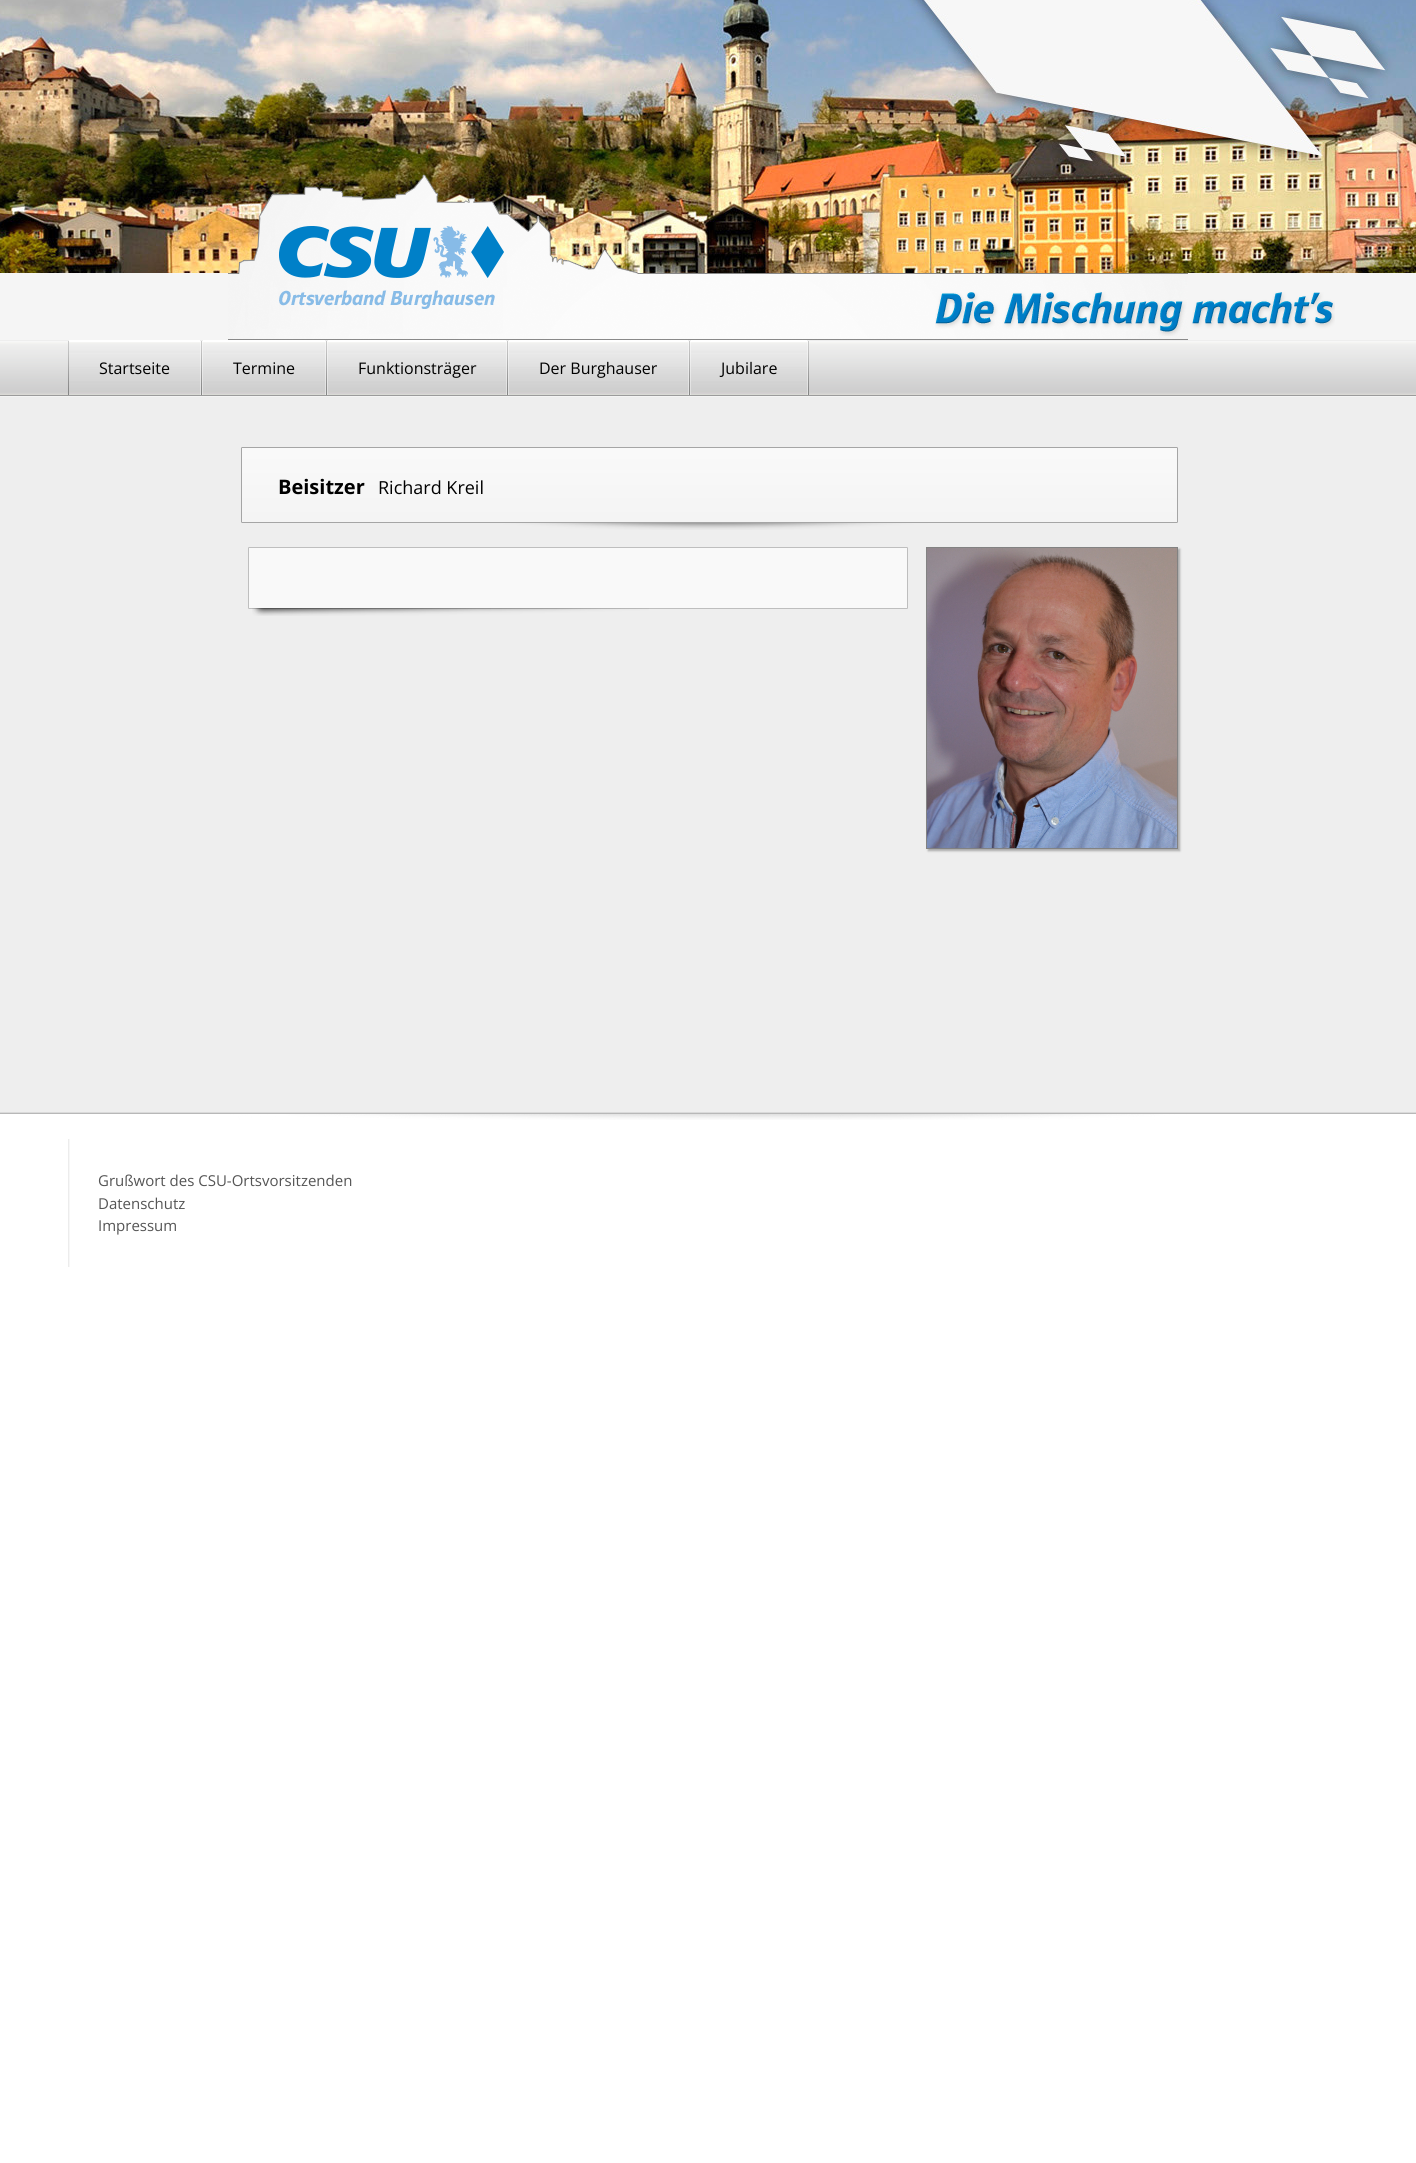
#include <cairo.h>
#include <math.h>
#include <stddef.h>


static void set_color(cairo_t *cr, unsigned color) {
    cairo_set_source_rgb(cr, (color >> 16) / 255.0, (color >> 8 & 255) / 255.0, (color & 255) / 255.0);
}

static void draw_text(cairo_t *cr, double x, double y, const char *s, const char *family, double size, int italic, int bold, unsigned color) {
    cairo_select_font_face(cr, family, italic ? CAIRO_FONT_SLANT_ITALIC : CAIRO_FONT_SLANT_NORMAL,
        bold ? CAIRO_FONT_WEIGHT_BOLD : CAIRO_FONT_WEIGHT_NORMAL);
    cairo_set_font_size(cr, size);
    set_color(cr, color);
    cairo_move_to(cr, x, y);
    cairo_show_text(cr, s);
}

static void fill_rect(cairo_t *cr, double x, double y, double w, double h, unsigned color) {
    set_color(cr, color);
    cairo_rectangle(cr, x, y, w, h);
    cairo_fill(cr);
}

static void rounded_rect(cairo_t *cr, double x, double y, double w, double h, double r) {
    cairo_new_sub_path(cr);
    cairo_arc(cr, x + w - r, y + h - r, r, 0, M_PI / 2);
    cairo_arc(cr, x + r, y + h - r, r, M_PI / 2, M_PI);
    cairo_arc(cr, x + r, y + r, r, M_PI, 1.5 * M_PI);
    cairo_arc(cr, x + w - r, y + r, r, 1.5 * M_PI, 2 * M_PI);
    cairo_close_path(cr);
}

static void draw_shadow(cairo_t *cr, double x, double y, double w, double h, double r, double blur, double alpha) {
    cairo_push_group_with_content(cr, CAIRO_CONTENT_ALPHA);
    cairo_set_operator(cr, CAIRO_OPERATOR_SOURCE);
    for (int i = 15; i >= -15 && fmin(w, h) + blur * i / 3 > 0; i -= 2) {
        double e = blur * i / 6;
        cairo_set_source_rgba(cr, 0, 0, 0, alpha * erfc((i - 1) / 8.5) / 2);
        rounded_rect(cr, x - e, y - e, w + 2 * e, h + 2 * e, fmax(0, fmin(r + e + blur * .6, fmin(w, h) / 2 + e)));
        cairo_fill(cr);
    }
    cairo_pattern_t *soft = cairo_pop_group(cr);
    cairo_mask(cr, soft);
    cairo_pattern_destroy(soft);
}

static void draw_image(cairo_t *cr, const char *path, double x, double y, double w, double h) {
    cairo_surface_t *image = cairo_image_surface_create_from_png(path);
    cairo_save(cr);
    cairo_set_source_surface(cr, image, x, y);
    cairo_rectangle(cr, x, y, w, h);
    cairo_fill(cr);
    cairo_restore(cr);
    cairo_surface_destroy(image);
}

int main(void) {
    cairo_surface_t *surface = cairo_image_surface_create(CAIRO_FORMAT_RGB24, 1416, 2163);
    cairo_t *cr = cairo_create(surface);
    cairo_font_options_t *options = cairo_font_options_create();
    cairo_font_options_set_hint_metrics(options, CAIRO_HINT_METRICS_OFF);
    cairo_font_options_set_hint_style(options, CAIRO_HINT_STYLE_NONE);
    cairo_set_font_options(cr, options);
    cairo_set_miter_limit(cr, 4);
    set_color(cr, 0xFFFFFF);
    cairo_paint(cr);
    draw_image(cr, "assets/img1.png", 0, 0, 1416, 273);
    fill_rect(cr, 0, 273, 1416, 67, 0xF5F5F5);
    draw_image(cr, "assets/img2.png", 228, 174, 960, 166);
    draw_image(cr, "assets/img3.png", 935, 292, 400, 44);
    fill_rect(cr, 0, 340, 1416, 772, 0xEEEEEE);
    fill_rect(cr, 0, 1112, 1416, 1, 0xDADADA);
    draw_image(cr, "assets/img4.png", 0, 341, 1416, 56);
    draw_image(cr, "assets/img5.png", 68, 341, 1, 54);
    draw_image(cr, "assets/img6.png", 200, 341, 3, 54);
    draw_image(cr, "assets/img7.png", 69, 340, 131, 55);
    draw_text(cr, 99, 374, "Startseite", "Open Sans", 16, 0, 0, 0x000000);
    draw_image(cr, "assets/img6.png", 325, 341, 3, 54);
    draw_image(cr, "assets/img8.png", 203, 340, 122, 55);
    draw_text(cr, 233, 374, "Termine", "Open Sans", 16, 0, 0, 0x000000);
    draw_image(cr, "assets/img6.png", 506, 341, 3, 54);
    draw_image(cr, "assets/img9.png", 328, 340, 178, 55);
    draw_text(cr, 358, 374, "Funktionsträger", "Open Sans", 16, 0, 0, 0x000000);
    draw_image(cr, "assets/img6.png", 688, 341, 3, 54);
    draw_image(cr, "assets/img10.png", 509, 340, 179, 55);
    draw_text(cr, 539, 374, "Der Burghauser", "Open Sans", 16, 0, 0, 0x000000);
    draw_image(cr, "assets/img11.png", 807, 341, 2, 54);
    draw_image(cr, "assets/img12.png", 691, 340, 116, 55);
    draw_text(cr, 721, 374, "Jubilare", "Open Sans", 16, 0, 0, 0x000000);
    draw_image(cr, "assets/img13.png", 241, 447, 937, 83);
    draw_text(cr, 278, 494, "Beisitzer", "Open Sans", 20, 0, 1, 0x000000);
    draw_text(cr, 378, 494, "Richard Kreil", "Open Sans", 18, 0, 0, 0x000000);
    set_color(cr, 0xF9F9F9);
    rounded_rect(cr, 248.5, 547.5, 659, 61, 0.5);
    cairo_fill_preserve(cr);
    set_color(cr, 0xBEBEBE);
    cairo_set_line_width(cr, 1);
    cairo_stroke(cr);
    draw_image(cr, "assets/img14.png", 252, 608, 397, 8);
    set_color(cr, 0xAAAAAA);
    draw_shadow(cr, 928, 549, 252, 302, 0, 1, 1);
    cairo_rectangle(cr, 926.5, 547.5, 251, 301);
    set_color(cr, 0x828282);
    cairo_stroke(cr);
    draw_image(cr, "assets/img15.png", 927, 548, 250, 300);
    draw_image(cr, "assets/img16.png", 228, 1114, 960, 6);
    fill_rect(cr, 0, 1113, 1416, 1, 0xB8B8B8);
    draw_image(cr, "assets/img17.png", 68, 1139, 2, 128);
    draw_text(cr, 98, 1186, "Grußwort des CSU-Ortsvorsitzenden", "Open Sans", 15, 0, 0, 0x555555);
    draw_text(cr, 98, 1209, "Datenschutz", "Open Sans", 15, 0, 0, 0x555555);
    draw_text(cr, 98, 1231, "Impressum", "Open Sans", 15, 0, 0, 0x555555);
    cairo_surface_write_to_png(surface, "output.png");
    cairo_font_options_destroy(options);
    cairo_destroy(cr);
    cairo_surface_destroy(surface);
    return 0;
}
